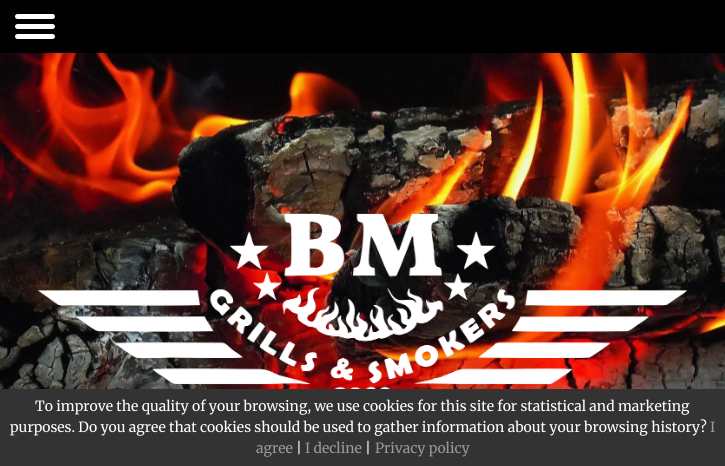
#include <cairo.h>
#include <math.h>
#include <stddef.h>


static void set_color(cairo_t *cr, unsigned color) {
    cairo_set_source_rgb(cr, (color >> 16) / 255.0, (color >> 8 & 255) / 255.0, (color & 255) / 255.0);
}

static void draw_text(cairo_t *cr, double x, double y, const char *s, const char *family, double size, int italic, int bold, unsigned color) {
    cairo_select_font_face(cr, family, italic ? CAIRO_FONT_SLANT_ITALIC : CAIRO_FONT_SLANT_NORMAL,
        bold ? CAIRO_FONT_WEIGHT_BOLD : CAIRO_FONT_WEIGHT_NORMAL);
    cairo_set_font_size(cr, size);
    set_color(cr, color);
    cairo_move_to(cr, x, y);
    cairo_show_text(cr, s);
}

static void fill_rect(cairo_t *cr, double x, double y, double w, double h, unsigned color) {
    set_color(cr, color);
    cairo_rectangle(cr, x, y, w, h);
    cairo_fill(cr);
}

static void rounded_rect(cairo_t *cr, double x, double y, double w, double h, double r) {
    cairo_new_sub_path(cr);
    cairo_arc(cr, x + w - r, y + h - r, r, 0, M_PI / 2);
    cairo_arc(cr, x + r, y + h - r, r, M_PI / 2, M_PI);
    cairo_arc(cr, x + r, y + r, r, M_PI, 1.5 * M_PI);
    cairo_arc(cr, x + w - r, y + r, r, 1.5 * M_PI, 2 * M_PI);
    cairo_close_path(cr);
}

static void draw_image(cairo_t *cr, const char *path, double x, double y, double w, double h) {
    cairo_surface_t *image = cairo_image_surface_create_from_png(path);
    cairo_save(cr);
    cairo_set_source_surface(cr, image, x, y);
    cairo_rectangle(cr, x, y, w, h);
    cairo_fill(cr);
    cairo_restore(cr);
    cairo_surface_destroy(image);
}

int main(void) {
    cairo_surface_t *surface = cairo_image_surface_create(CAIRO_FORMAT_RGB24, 725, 466);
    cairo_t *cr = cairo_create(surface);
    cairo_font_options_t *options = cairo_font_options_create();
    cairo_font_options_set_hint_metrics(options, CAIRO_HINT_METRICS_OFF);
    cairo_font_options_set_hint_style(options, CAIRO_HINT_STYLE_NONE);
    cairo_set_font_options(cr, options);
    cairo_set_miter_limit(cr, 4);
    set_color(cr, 0xFFFFFF);
    cairo_paint(cr);
    draw_image(cr, "assets/img1.png", 0, 53, 725, 336);
    fill_rect(cr, 0, 0, 725, 53, 0x000000);
    set_color(cr, 0xFFFFFF);
    rounded_rect(cr, 15, 14, 40, 5, 2.5);
    cairo_fill(cr);
    rounded_rect(cr, 15, 24, 40, 5, 2.5);
    cairo_fill(cr);
    rounded_rect(cr, 15, 34, 40, 5, 2.5);
    cairo_fill(cr);
    draw_image(cr, "assets/img2.png", 37, 213, 651, 176);
    fill_rect(cr, 0, 389, 725, 77, 0x333333);
    draw_text(cr, 35, 411, "To improve the quality of your browsing, we use cookies for this site for statistical and marketing", "Merriweather", 14, 0, 0, 0xFFFFFF);
    draw_text(cr, 10, 432, "purposes. Do you agree that cookies should be used to gather information about your browsing history?", "Merriweather", 14, 0, 0, 0xFFFFFF);
    draw_text(cr, 710, 432, "I", "Merriweather", 14, 0, 0, 0x999999);
    draw_text(cr, 256, 453, "agree", "Merriweather", 14, 0, 0, 0x999999);
    draw_text(cr, 296, 453, "|", "Merriweather", 14, 0, 0, 0xFFFFFF);
    draw_text(cr, 305, 453, "I decline", "Merriweather", 14, 0, 0, 0x999999);
    draw_text(cr, 365, 453, "|", "Merriweather", 14, 0, 0, 0xFFFFFF);
    draw_text(cr, 375, 453, "Privacy policy", "Merriweather", 14, 0, 0, 0x999999);
    cairo_surface_write_to_png(surface, "output.png");
    cairo_font_options_destroy(options);
    cairo_destroy(cr);
    cairo_surface_destroy(surface);
    return 0;
}
